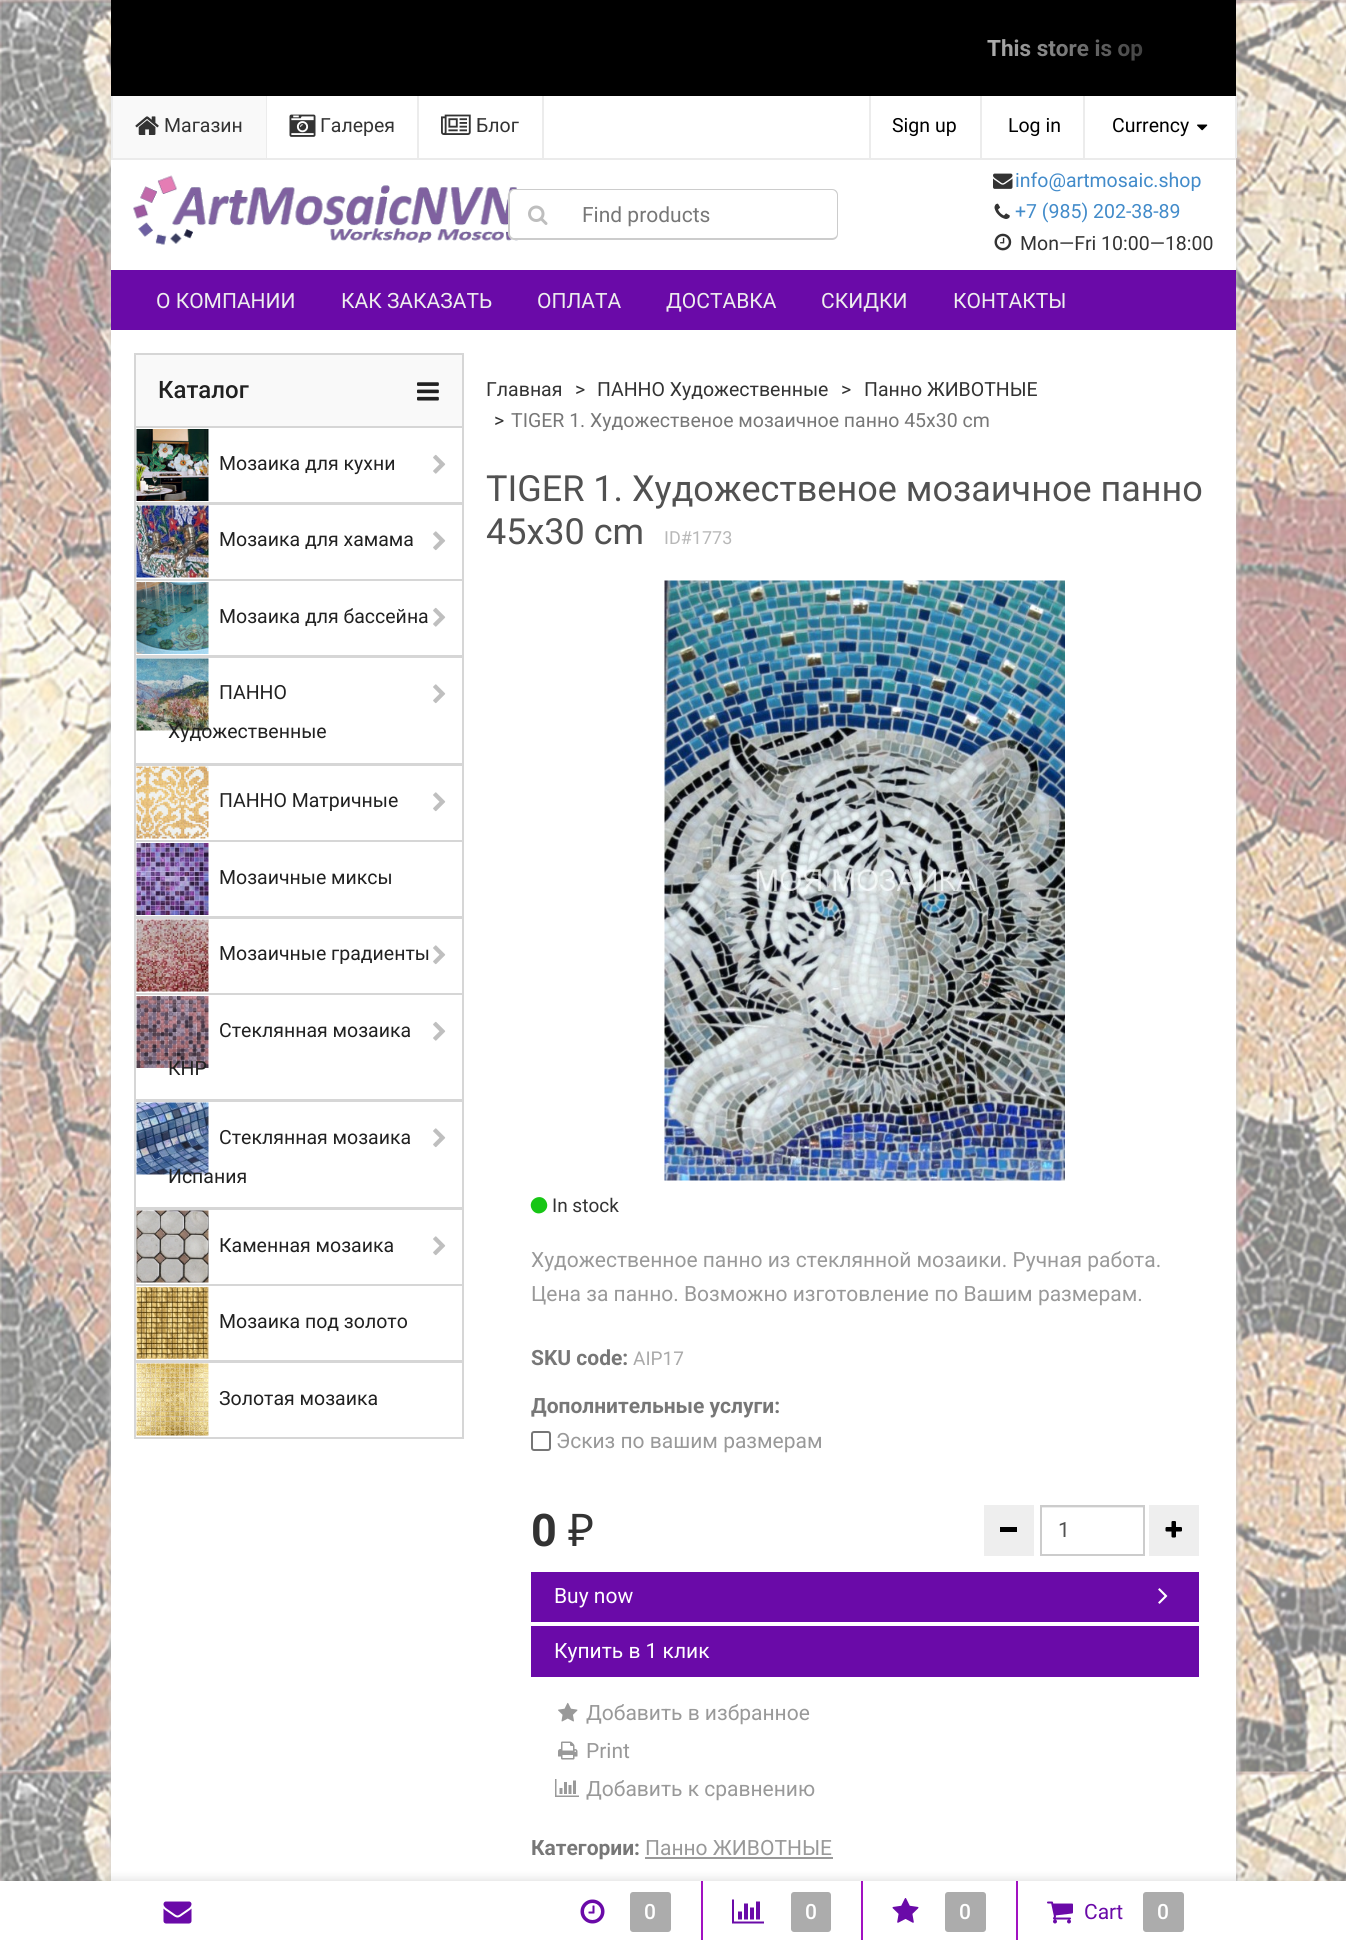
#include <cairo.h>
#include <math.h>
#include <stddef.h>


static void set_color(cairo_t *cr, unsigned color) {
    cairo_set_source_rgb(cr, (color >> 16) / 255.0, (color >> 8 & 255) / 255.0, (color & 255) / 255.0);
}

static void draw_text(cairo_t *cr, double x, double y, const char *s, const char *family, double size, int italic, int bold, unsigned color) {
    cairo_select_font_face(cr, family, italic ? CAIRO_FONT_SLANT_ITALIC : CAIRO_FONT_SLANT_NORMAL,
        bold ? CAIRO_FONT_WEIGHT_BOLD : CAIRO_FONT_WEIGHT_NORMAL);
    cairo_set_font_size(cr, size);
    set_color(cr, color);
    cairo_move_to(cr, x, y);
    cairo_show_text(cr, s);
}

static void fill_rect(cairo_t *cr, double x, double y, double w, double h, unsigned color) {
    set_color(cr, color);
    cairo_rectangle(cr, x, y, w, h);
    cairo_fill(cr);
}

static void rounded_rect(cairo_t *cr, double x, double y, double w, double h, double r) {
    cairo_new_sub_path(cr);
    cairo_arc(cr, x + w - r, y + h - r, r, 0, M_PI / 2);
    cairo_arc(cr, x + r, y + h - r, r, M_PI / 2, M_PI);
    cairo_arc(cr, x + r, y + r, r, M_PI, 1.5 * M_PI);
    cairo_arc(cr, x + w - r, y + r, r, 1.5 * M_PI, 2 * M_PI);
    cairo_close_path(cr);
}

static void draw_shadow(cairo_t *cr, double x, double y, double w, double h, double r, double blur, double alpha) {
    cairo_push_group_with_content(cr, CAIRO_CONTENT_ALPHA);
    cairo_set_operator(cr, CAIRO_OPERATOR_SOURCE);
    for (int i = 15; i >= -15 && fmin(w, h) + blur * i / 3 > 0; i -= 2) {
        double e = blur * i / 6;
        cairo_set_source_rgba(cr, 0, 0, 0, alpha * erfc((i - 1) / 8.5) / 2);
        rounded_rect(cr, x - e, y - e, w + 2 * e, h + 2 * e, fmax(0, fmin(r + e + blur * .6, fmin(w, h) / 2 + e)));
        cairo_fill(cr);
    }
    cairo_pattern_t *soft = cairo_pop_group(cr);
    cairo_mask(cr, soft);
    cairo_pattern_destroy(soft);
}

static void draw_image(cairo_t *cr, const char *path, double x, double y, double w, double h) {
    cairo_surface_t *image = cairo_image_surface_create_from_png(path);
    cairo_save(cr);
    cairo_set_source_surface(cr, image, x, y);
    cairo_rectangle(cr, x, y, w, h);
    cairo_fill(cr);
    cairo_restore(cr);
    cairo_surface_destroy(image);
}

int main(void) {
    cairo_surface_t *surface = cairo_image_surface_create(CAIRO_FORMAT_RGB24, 1346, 1940);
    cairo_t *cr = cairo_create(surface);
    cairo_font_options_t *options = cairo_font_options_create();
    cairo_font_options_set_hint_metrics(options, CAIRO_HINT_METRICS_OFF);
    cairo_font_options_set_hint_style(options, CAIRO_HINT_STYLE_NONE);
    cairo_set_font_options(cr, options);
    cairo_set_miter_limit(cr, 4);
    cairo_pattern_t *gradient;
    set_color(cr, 0xFFFFFF);
    cairo_paint(cr);
    draw_image(cr, "assets/img1.png", 0, 0, 1346, 1881);
    set_color(cr, 0xCCCCCC);
    draw_shadow(cr, 111, 96, 1125, 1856, 0, 4, 1);
    fill_rect(cr, 111, 0, 1123, 96, 0x000000);
    draw_text(cr, 987, 56, "This store is op", "Roboto", 22.5, 0, 1, 0xEEEEEE);
    gradient = cairo_pattern_create_linear(1236, 48, 900, 48);
    cairo_pattern_add_color_stop_rgba(gradient, 0, 0, 0, 0, 1);
    cairo_pattern_add_color_stop_rgba(gradient, 1, 0, 0, 0, 0);
    cairo_set_source(cr, gradient);
    cairo_pattern_destroy(gradient);
    cairo_rectangle(cr, 987, 0, 249, 96);
    cairo_fill(cr);
    fill_rect(cr, 111, 96, 1125, 1785, 0xFFFFFF);
    fill_rect(cr, 111, 158, 1125, 2, 0xEBEBEB);
    fill_rect(cr, 113, 96, 153, 62, 0xF9F9F9);
    fill_rect(cr, 266, 96, 1, 62, 0xECECEC);
    fill_rect(cr, 111, 96, 2, 62, 0xECECEC);
    draw_image(cr, "assets/img2.png", 135, 116, 24, 19);
    draw_text(cr, 164, 132, "Магазин", "Roboto", 19.5, 0, 0, 0x333333);
    fill_rect(cr, 417, 96, 2, 62, 0xECECEC);
    draw_image(cr, "assets/img3.png", 289, 114, 27, 23);
    draw_text(cr, 320, 132, "Галерея", "Roboto", 19.5, 0, 0, 0x333333);
    fill_rect(cr, 542, 96, 2, 62, 0xECECEC);
    draw_image(cr, "assets/img4.png", 441, 114, 30, 21);
    draw_text(cr, 476, 132, "Блог", "Roboto", 19.5, 0, 0, 0x333333);
    fill_rect(cr, 980, 96, 2, 62, 0xECECEC);
    fill_rect(cr, 869, 96, 2, 62, 0xECECEC);
    draw_text(cr, 892, 132, "Sign up", "Roboto", 19.5, 0, 0, 0x000000);
    fill_rect(cr, 1083, 96, 2, 62, 0xECECEC);
    draw_text(cr, 1008, 132, "Log in", "Roboto", 19.5, 0, 0, 0x000000);
    fill_rect(cr, 1235, 96, 2, 62, 0xECECEC);
    draw_text(cr, 1112, 132, "Currency", "Roboto", 19.5, 0, 0, 0x000000);
    draw_image(cr, "assets/img5.png", 1197, 124, 11, 7);
    draw_image(cr, "assets/img6.png", 133, 175, 385, 70);
    set_color(cr, 0xCCCCCC);
    cairo_set_fill_rule(cr, CAIRO_FILL_RULE_EVEN_ODD);
    cairo_new_path(cr);
    cairo_move_to(cr, 564, 189);
    cairo_line_to(cr, 832, 189);
    cairo_curve_to(cr, 836, 189, 838, 192, 838, 195);
    cairo_line_to(cr, 838, 234);
    cairo_curve_to(cr, 838, 237, 836, 240, 832, 240);
    cairo_line_to(cr, 564, 240);
    cairo_close_path(cr);
    cairo_move_to(cr, 564, 190);
    cairo_line_to(cr, 832, 190);
    cairo_curve_to(cr, 835, 190, 837, 193, 837, 195);
    cairo_line_to(cr, 837, 234);
    cairo_curve_to(cr, 837, 236, 835, 238, 832, 238);
    cairo_line_to(cr, 564, 238);
    cairo_close_path(cr);
    cairo_fill(cr);
    set_color(cr, 0xFFFFFF);
    cairo_new_path(cr);
    cairo_move_to(cr, 515, 189);
    cairo_line_to(cr, 566, 189);
    cairo_line_to(cr, 566, 240);
    cairo_line_to(cr, 515, 240);
    cairo_curve_to(cr, 511.5, 240, 509, 237.5, 509, 234);
    cairo_line_to(cr, 509, 195);
    cairo_curve_to(cr, 509, 191.5, 511.5, 189, 515, 189);
    cairo_close_path(cr);
    cairo_fill(cr);
    set_color(cr, 0xCCCCCC);
    cairo_new_path(cr);
    cairo_move_to(cr, 514, 189);
    cairo_line_to(cr, 566, 189);
    cairo_line_to(cr, 566, 240);
    cairo_line_to(cr, 514, 240);
    cairo_curve_to(cr, 511, 240, 508, 237, 508, 234);
    cairo_line_to(cr, 508, 195);
    cairo_curve_to(cr, 508, 192, 511, 189, 514, 189);
    cairo_close_path(cr);
    cairo_move_to(cr, 514, 190);
    cairo_line_to(cr, 566, 190);
    cairo_line_to(cr, 566, 238);
    cairo_line_to(cr, 514, 238);
    cairo_curve_to(cr, 512, 238, 510, 236, 510, 234);
    cairo_line_to(cr, 510, 195);
    cairo_curve_to(cr, 510, 193, 512, 190, 514, 190);
    cairo_close_path(cr);
    cairo_fill(cr);
    draw_image(cr, "assets/img7.png", 528, 205, 20, 20);
    draw_text(cr, 582, 222, "Find products", "Roboto", 21, 0, 0, 0x777777);
    draw_image(cr, "assets/img8.png", 993, 173, 20, 16);
    draw_text(cr, 1015, 187, "info@artmosaic.shop", "Roboto", 19.5, 0, 0, 0x428BCA);
    draw_image(cr, "assets/img9.png", 994, 203, 16, 16);
    draw_text(cr, 1015, 218, "+7 (985) 202-38-89", "Roboto", 19.5, 0, 0, 0x428BCA);
    draw_image(cr, "assets/img10.png", 994, 233, 18, 18);
    draw_text(cr, 1020, 250, "Mon—Fri 10:00—18:00", "Roboto", 19.5, 0, 0, 0x333333);
    fill_rect(cr, 111, 270, 1125, 60, 0x6A0AA8);
    draw_text(cr, 156, 308, "О КОМПАНИИ", "Roboto", 21, 0, 0, 0xEEEEEE);
    draw_text(cr, 341, 308, "КАК ЗАКАЗАТЬ", "Roboto", 21, 0, 0, 0xEEEEEE);
    draw_text(cr, 537, 308, "ОПЛАТА", "Roboto", 21, 0, 0, 0xEEEEEE);
    draw_text(cr, 666, 308, "ДОСТАВКА", "Roboto", 21, 0, 0, 0xEEEEEE);
    draw_text(cr, 821, 308, "СКИДКИ", "Roboto", 21, 0, 0, 0xEEEEEE);
    draw_text(cr, 953, 308, "КОНТАКТЫ", "Roboto", 21, 0, 0, 0xEEEEEE);
    set_color(cr, 0xF9F9F9);
    cairo_rectangle(cr, 135, 354, 328, 73);
    cairo_fill_preserve(cr);
    set_color(cr, 0xD6D6D6);
    cairo_stroke(cr);
    draw_text(cr, 158, 398, "Каталог", "Roboto Medium", 24, 0, 0, 0x212121);
    draw_image(cr, "assets/img11.png", 417, 382, 22, 19);
    cairo_rectangle(cr, 135, 427, 328, 76);
    set_color(cr, 0xD6D6D6);
    cairo_stroke(cr);
    draw_image(cr, "assets/img12.png", 136, 429, 73, 72);
    draw_text(cr, 219, 470, "Мозаика для кухни", "Roboto", 19.5, 0, 0, 0x212121);
    draw_image(cr, "assets/img13.png", 433, 454, 13, 20);
    cairo_rectangle(cr, 135, 504, 328, 76);
    set_color(cr, 0xD6D6D6);
    cairo_stroke(cr);
    draw_image(cr, "assets/img14.png", 136, 505, 73, 73);
    draw_text(cr, 219, 546, "Мозаика для хамама", "Roboto", 19.5, 0, 0, 0x212121);
    draw_image(cr, "assets/img15.png", 433, 531, 13, 20);
    cairo_rectangle(cr, 135, 580, 328, 76);
    set_color(cr, 0xD6D6D6);
    cairo_stroke(cr);
    draw_image(cr, "assets/img16.png", 136, 582, 73, 72);
    draw_text(cr, 219, 623, "Мозаика для бассейна", "Roboto", 19.5, 0, 0, 0x212121);
    draw_image(cr, "assets/img13.png", 433, 607, 13, 20);
    cairo_rectangle(cr, 135, 657, 328, 107);
    set_color(cr, 0xD6D6D6);
    cairo_stroke(cr);
    draw_image(cr, "assets/img17.png", 136, 658, 73, 73);
    draw_text(cr, 219, 699, "ПАННО", "Roboto", 19.5, 0, 0, 0x212121);
    draw_text(cr, 168, 738, "Художественные", "Roboto", 19.5, 0, 0, 0x212121);
    draw_image(cr, "assets/img15.png", 433, 684, 13, 20);
    cairo_rectangle(cr, 135, 765, 328, 76);
    set_color(cr, 0xD6D6D6);
    cairo_stroke(cr);
    draw_image(cr, "assets/img18.png", 136, 766, 73, 73);
    draw_text(cr, 219, 807, "ПАННО Матричные", "Roboto", 19.5, 0, 0, 0x212121);
    draw_image(cr, "assets/img15.png", 433, 792, 13, 20);
    cairo_rectangle(cr, 135, 841, 328, 76);
    set_color(cr, 0xD6D6D6);
    cairo_stroke(cr);
    draw_image(cr, "assets/img19.png", 136, 843, 73, 72);
    draw_text(cr, 219, 884, "Мозаичные миксы", "Roboto", 19.5, 0, 0, 0x212121);
    cairo_rectangle(cr, 135, 918, 328, 76);
    set_color(cr, 0xD6D6D6);
    cairo_stroke(cr);
    draw_image(cr, "assets/img20.png", 136, 919, 73, 73);
    draw_text(cr, 219, 960, "Мозаичные градиенты", "Roboto", 19.5, 0, 0, 0x212121);
    draw_image(cr, "assets/img15.png", 433, 945, 13, 20);
    cairo_rectangle(cr, 135, 994, 328, 106);
    set_color(cr, 0xD6D6D6);
    cairo_stroke(cr);
    draw_image(cr, "assets/img21.png", 136, 996, 73, 72);
    draw_text(cr, 219, 1037, "Стеклянная мозаика", "Roboto", 19.5, 0, 0, 0x212121);
    draw_text(cr, 168, 1075, "КНР", "Roboto", 19.5, 0, 0, 0x212121);
    draw_image(cr, "assets/img13.png", 433, 1021, 13, 20);
    cairo_rectangle(cr, 135, 1101, 328, 107);
    set_color(cr, 0xD6D6D6);
    cairo_stroke(cr);
    draw_image(cr, "assets/img22.png", 136, 1102, 73, 73);
    draw_text(cr, 219, 1144, "Стеклянная мозаика", "Roboto", 19.5, 0, 0, 0x212121);
    draw_text(cr, 168, 1183, "Испания", "Roboto", 19.5, 0, 0, 0x212121);
    draw_image(cr, "assets/img15.png", 433, 1128, 13, 20);
    cairo_rectangle(cr, 135, 1209, 328, 76);
    set_color(cr, 0xD6D6D6);
    cairo_stroke(cr);
    draw_image(cr, "assets/img23.png", 136, 1210, 73, 73);
    draw_text(cr, 219, 1252, "Каменная мозаика", "Roboto", 19.5, 0, 0, 0x212121);
    draw_image(cr, "assets/img15.png", 433, 1236, 13, 20);
    cairo_rectangle(cr, 135, 1285, 328, 76);
    set_color(cr, 0xD6D6D6);
    cairo_stroke(cr);
    draw_image(cr, "assets/img24.png", 136, 1287, 73, 72);
    draw_text(cr, 219, 1328, "Мозаика под золото", "Roboto", 19.5, 0, 0, 0x212121);
    cairo_rectangle(cr, 135, 1362, 328, 76);
    set_color(cr, 0xD6D6D6);
    cairo_stroke(cr);
    draw_image(cr, "assets/img25.png", 136, 1363, 73, 73);
    draw_text(cr, 219, 1405, "Золотая мозаика", "Roboto", 19.5, 0, 0, 0x212121);
    draw_text(cr, 486, 396, "Главная", "Roboto", 19.5, 0, 0, 0x333333);
    draw_text(cr, 575, 396, ">", "Roboto", 19.5, 0, 0, 0x333333);
    draw_text(cr, 597, 396, "ПАННО Художественные", "Roboto", 19.5, 0, 0, 0x333333);
    draw_text(cr, 841, 396, ">", "Roboto", 19.5, 0, 0, 0x333333);
    draw_text(cr, 864, 396, "Панно ЖИВОТНЫЕ", "Roboto", 19.5, 0, 0, 0x333333);
    draw_text(cr, 494, 427, ">", "Roboto", 19.5, 0, 0, 0x333333);
    draw_text(cr, 511, 427, "TIGER 1. Художественое мозаичное панно 45х30 cm", "Roboto", 19.5, 0, 0, 0x777777);
    draw_text(cr, 486, 501, "TIGER 1. Художественое мозаичное панно", "Roboto", 36, 0, 0, 0x515151);
    draw_text(cr, 486, 544, "45х30 cm", "Roboto", 36, 0, 0, 0x515151);
    draw_text(cr, 664, 544, "ID#1773", "Roboto", 18, 0, 0, 0xB8B8B8);
    draw_image(cr, "assets/img26.png", 664, 580, 401, 601);
    set_color(cr, 0x17C615);
    cairo_set_fill_rule(cr, CAIRO_FILL_RULE_WINDING);
    cairo_new_path(cr);
    cairo_move_to(cr, 546, 1201);
    cairo_curve_to(cr, 551.5, 1210.5, 537.5, 1218.5, 532, 1209.5);
    cairo_curve_to(cr, 526.5, 1200, 540.5, 1192, 546, 1201);
    cairo_close_path(cr);
    cairo_fill(cr);
    draw_text(cr, 552, 1212, "In stock", "Roboto", 19, 0, 0, 0x333333);
    draw_text(cr, 531, 1267, "Художественное панно из стеклянной мозаики. Ручная работа.", "Roboto", 21, 0, 0, 0x999999);
    draw_text(cr, 531, 1301, "Цена за панно. Возможно изготовление по Вашим размерам.", "Roboto", 21, 0, 0, 0x999999);
    draw_text(cr, 531, 1365, "SKU code:", "Roboto", 21, 0, 1, 0x777777);
    draw_text(cr, 633, 1365, "AIP17", "Roboto", 19, 0, 0, 0xAAAAAA);
    draw_text(cr, 531, 1413, "Дополнительные услуги:", "Roboto", 21, 0, 1, 0x777777);
    rounded_rect(cr, 532, 1432, 18, 18, 2);
    set_color(cr, 0x767676);
    cairo_stroke(cr);
    draw_text(cr, 556, 1448, "Эскиз по вашим размерам", "Roboto", 21, 0, 0, 0x999999);
    draw_text(cr, 531, 1546, "0", "Roboto", 45, 0, 1, 0x333333);
    draw_text(cr, 568, 1546, "₽", "Noto Sans", 45, 0, 0, 0x333333);
    fill_rect(cr, 984, 1505, 50, 51, 0xEEEEEE);
    fill_rect(cr, 1000, 1527, 17, 5, 0x000000);
    fill_rect(cr, 1041, 1507, 102, 1, 0xECECEC);
    cairo_rectangle(cr, 1041, 1506, 103, 49);
    set_color(cr, 0xCCCCCC);
    cairo_stroke(cr);
    draw_text(cr, 1058, 1537, "1", "Roboto", 21, 0, 0, 0x515151);
    fill_rect(cr, 1149, 1505, 50, 51, 0xEEEEEE);
    draw_image(cr, "assets/img27.png", 1165, 1521, 17, 17);
    fill_rect(cr, 531, 1572, 668, 50, 0x6A0AA8);
    draw_text(cr, 554, 1603, "Buy now", "Roboto", 21, 0, 0, 0xFFFFFF);
    draw_image(cr, "assets/img28.png", 1158, 1588, 10, 16);
    fill_rect(cr, 531, 1626, 668, 51, 0x6A0AA8);
    draw_text(cr, 554, 1658, "Купить в 1 клик", "Roboto", 21, 0, 0, 0xFFFFFF);
    draw_image(cr, "assets/img29.png", 558, 1702, 20, 20);
    draw_text(cr, 586, 1720, "Добавить в избранное", "Roboto", 21, 0, 0, 0x999999);
    draw_image(cr, "assets/img30.png", 558, 1741, 20, 19);
    draw_text(cr, 586, 1758, "Print", "Roboto", 21, 0, 0, 0x999999);
    draw_image(cr, "assets/img31.png", 555, 1779, 24, 18);
    draw_text(cr, 586, 1796, "Добавить к сравнению", "Roboto", 21, 0, 0, 0x999999);
    draw_text(cr, 531, 1855, "Категории:", "Roboto", 21, 0, 1, 0x777777);
    draw_text(cr, 645, 1855, "Панно ЖИВОТНЫЕ", "Roboto", 21, 0, 0, 0x999999);
    fill_rect(cr, 645, 1857, 188, 2, 0x999999);
    set_color(cr, 0x000000);
    draw_shadow(cr, 0, 1878, 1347, 60, 0, 4, 0.1);
    fill_rect(cr, 0, 1881, 1346, 59, 0xFFFFFF);
    draw_image(cr, "assets/img32.png", 163, 1901, 29, 23);
    fill_rect(cr, 701, 1881, 2, 59, 0xA112C1);
    draw_image(cr, "assets/img33.png", 580, 1899, 25, 25);
    set_color(cr, 0xACACAC);
    rounded_rect(cr, 630, 1892, 41, 40, 3);
    cairo_fill(cr);
    draw_text(cr, 644, 1919, "0", "Roboto Medium", 21, 0, 0, 0xFFFFFF);
    fill_rect(cr, 861, 1881, 2, 59, 0xA112C1);
    draw_image(cr, "assets/img34.png", 732, 1899, 32, 25);
    set_color(cr, 0xACACAC);
    rounded_rect(cr, 791, 1892, 40, 40, 3);
    cairo_fill(cr);
    draw_text(cr, 805, 1919, "0", "Roboto Medium", 21, 0, 0, 0xFFFFFF);
    fill_rect(cr, 1016, 1881, 2, 59, 0xA112C1);
    draw_image(cr, "assets/img35.png", 892, 1898, 27, 25);
    set_color(cr, 0xACACAC);
    rounded_rect(cr, 945, 1892, 41, 40, 3);
    cairo_fill(cr);
    draw_text(cr, 959, 1919, "0", "Roboto Medium", 21, 0, 0, 0xFFFFFF);
    draw_image(cr, "assets/img36.png", 1047, 1901, 26, 23);
    draw_text(cr, 1084, 1919, "Cart", "Roboto", 21, 0, 0, 0x6A0AA8);
    set_color(cr, 0xACACAC);
    rounded_rect(cr, 1143, 1892, 41, 40, 3);
    cairo_fill(cr);
    draw_text(cr, 1157, 1919, "0", "Roboto Medium", 21, 0, 0, 0xFFFFFF);
    cairo_surface_write_to_png(surface, "output.png");
    cairo_font_options_destroy(options);
    cairo_destroy(cr);
    cairo_surface_destroy(surface);
    return 0;
}
